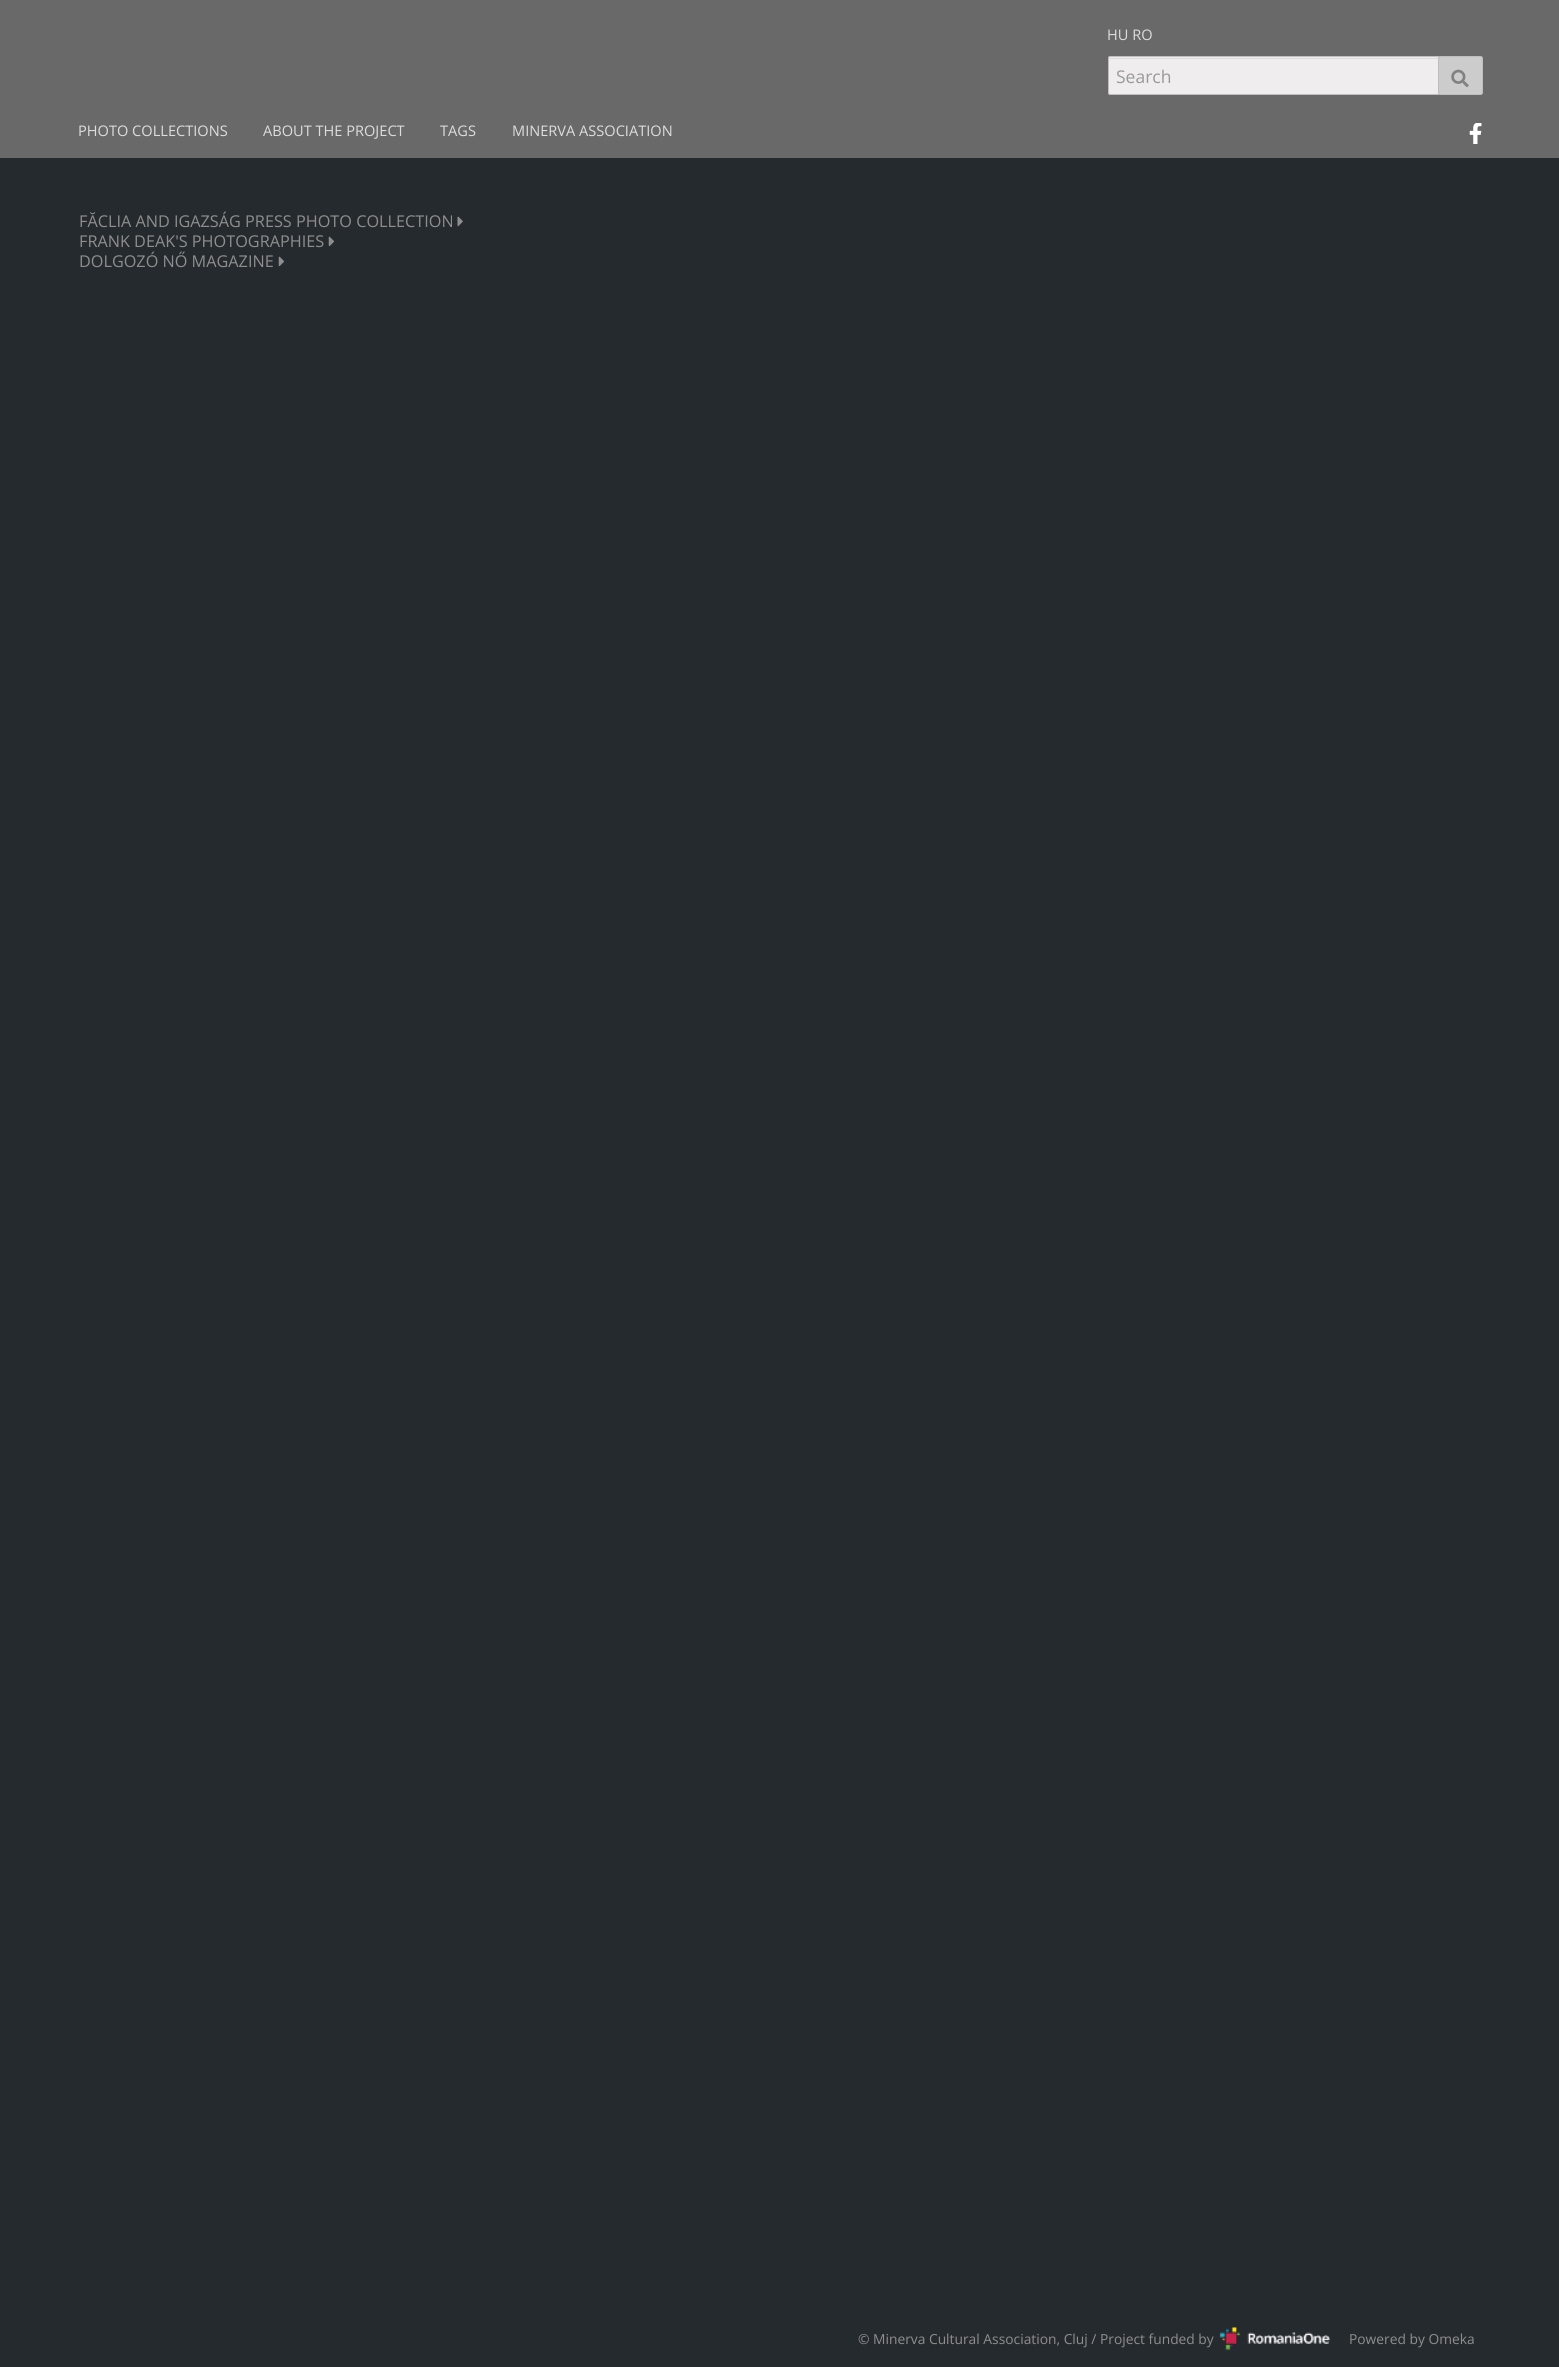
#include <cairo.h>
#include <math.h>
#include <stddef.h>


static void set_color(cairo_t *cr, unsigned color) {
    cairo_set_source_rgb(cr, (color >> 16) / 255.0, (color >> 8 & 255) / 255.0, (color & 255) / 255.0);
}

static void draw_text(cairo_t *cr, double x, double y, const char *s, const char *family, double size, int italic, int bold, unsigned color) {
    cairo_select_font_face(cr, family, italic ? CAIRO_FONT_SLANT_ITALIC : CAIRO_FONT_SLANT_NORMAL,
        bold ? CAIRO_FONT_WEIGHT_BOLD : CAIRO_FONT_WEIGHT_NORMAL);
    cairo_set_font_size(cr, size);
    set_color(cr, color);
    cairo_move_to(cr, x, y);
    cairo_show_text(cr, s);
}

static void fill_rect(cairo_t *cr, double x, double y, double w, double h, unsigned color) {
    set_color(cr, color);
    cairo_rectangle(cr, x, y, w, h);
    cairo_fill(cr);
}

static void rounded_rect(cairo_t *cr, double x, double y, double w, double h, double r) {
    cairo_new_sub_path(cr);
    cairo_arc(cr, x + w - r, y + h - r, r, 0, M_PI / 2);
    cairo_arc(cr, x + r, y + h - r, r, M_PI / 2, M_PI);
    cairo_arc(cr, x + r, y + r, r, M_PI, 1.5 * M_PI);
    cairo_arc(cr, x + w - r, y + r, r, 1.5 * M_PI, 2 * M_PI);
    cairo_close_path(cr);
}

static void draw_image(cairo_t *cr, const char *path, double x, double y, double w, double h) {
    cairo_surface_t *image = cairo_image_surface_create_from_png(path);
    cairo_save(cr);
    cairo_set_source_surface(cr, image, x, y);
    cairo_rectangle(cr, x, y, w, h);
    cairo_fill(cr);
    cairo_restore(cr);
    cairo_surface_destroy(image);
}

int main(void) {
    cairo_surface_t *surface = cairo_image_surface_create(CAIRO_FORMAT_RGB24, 1559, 2367);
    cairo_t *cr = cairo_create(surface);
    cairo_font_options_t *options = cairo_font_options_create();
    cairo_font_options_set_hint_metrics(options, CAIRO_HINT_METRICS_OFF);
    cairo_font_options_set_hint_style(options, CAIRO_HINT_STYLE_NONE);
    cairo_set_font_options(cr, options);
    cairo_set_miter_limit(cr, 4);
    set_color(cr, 0x252A2F);
    cairo_paint(cr);
    fill_rect(cr, 0, 0, 1559, 158, 0x696969);
    draw_text(cr, 1107, 40, "HU RO", "Open Sans", 14.6, 0, 0, 0xDDDDDD);
    set_color(cr, 0xEFEDED);
    rounded_rect(cr, 1108, 56, 332, 39, 2.5);
    cairo_fill(cr);
    set_color(cr, 0xDDDBDB);
    cairo_new_path(cr);
    cairo_move_to(cr, 1110, 59);
    cairo_line_to(cr, 1438, 59);
    cairo_line_to(cr, 1439, 60);
    cairo_line_to(cr, 1439, 59);
    cairo_line_to(cr, 1438, 58);
    cairo_line_to(cr, 1110, 58);
    cairo_curve_to(cr, 1109, 58, 1109, 59, 1109, 60);
    cairo_curve_to(cr, 1109, 59, 1109, 59, 1110, 59);
    cairo_close_path(cr);
    cairo_fill(cr);
    rounded_rect(cr, 1108.5, 56.5, 331, 38, 2);
    set_color(cr, 0xBFBEBE);
    cairo_set_line_width(cr, 1);
    cairo_stroke(cr);
    draw_text(cr, 1116, 83, "Search", "Open Sans", 17.5, 0, 0, 0x999999);
    set_color(cr, 0xCCCCCC);
    rounded_rect(cr, 1438.5, 56.5, 44, 38, 2);
    cairo_fill_preserve(cr);
    set_color(cr, 0xBFBEBE);
    cairo_stroke(cr);
    draw_image(cr, "assets/img1.png", 1451, 69, 18, 18);
    draw_text(cr, 78, 136, "PHOTO COLLECTIONS", "Open Sans", 14.6, 0, 0, 0xDDDDDD);
    draw_text(cr, 263, 136, "ABOUT THE PROJECT", "Open Sans", 14.6, 0, 0, 0xDDDDDD);
    draw_text(cr, 440, 136, "TAGS", "Open Sans", 14.6, 0, 0, 0xDDDDDD);
    draw_text(cr, 512, 136, "MINERVA ASSOCIATION", "Open Sans", 14.6, 0, 0, 0xDDDDDD);
    draw_image(cr, "assets/img2.png", 1469, 123, 13, 21);
    draw_text(cr, 79, 227, "FĂCLIA AND IGAZSÁG PRESS PHOTO COLLECTION", "Open Sans", 16.25, 0, 0, 0x8F8E8E);
    draw_image(cr, "assets/img3.png", 457, 216, 6, 11);
    draw_text(cr, 79, 247, "FRANK DEAK'S PHOTOGRAPHIES", "Open Sans", 16.25, 0, 0, 0x8F8E8E);
    draw_image(cr, "assets/img4.png", 328, 236, 6, 11);
    draw_text(cr, 79, 267, "DOLGOZÓ NŐ MAGAZINE", "Open Sans", 16.25, 0, 0, 0x8F8E8E);
    draw_image(cr, "assets/img4.png", 278, 256, 6, 11);
    draw_text(cr, 858, 2344, "© Minerva Cultural Association, Cluj / Project funded by", "Open Sans", 13.8, 0, 0, 0x8F8E8E);
    draw_image(cr, "assets/img5.png", 1219, 2327, 112, 24);
    draw_text(cr, 1349, 2344, "Powered by Omeka", "Open Sans", 13.8, 0, 0, 0x8F8E8E);
    cairo_surface_write_to_png(surface, "output.png");
    cairo_font_options_destroy(options);
    cairo_destroy(cr);
    cairo_surface_destroy(surface);
    return 0;
}
